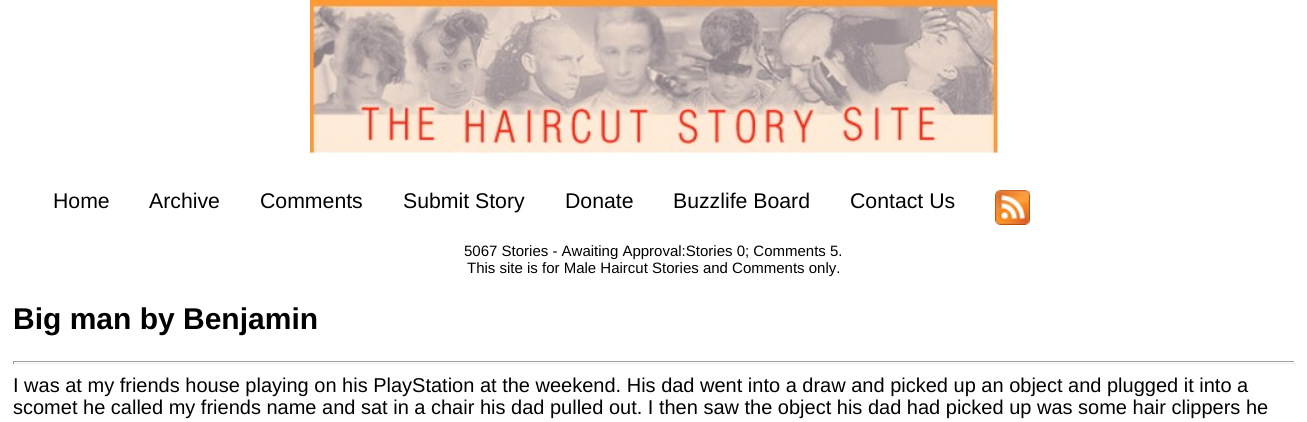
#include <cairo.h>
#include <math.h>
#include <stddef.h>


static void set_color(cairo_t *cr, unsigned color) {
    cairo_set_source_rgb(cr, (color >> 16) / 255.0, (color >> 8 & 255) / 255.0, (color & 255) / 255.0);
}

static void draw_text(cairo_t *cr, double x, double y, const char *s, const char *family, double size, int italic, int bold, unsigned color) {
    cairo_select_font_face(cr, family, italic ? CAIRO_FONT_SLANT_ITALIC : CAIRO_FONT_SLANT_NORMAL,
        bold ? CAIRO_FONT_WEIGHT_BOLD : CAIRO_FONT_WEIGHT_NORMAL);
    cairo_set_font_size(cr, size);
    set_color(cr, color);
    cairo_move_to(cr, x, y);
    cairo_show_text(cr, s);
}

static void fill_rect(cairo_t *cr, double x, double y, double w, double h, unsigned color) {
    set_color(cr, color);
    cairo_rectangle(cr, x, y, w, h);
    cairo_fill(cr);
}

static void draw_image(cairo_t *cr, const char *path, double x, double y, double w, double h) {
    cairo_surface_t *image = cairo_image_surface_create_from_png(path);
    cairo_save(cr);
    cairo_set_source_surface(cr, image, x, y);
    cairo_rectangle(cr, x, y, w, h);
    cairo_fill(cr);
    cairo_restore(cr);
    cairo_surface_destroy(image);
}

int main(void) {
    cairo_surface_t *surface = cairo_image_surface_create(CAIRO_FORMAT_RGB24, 1307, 422);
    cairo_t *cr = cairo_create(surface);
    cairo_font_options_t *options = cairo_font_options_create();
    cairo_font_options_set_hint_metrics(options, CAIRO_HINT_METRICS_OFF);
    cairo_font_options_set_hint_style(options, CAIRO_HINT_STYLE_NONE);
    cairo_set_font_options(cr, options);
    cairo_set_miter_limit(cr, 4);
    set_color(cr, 0xFFFFFF);
    cairo_paint(cr);
    draw_image(cr, "assets/img1.png", 310, 0, 688, 154);
    draw_text(cr, 53, 208, "Home", "Liberation Sans", 21.25, 0, 0, 0x000000);
    draw_text(cr, 149, 208, "Archive", "Liberation Sans", 21.25, 0, 0, 0x000000);
    draw_text(cr, 260, 208, "Comments", "Liberation Sans", 21.25, 0, 0, 0x000000);
    draw_text(cr, 403, 208, "Submit Story", "Liberation Sans", 21.25, 0, 0, 0x000000);
    draw_text(cr, 565, 208, "Donate", "Liberation Sans", 21.25, 0, 0, 0x000000);
    draw_text(cr, 673, 208, "Buzzlife Board", "Liberation Sans", 21.25, 0, 0, 0x000000);
    draw_text(cr, 850, 208, "Contact Us", "Liberation Sans", 21.25, 0, 0, 0x000000);
    draw_image(cr, "assets/img2.png", 995, 190, 35, 35);
    draw_text(cr, 464, 256, "5067 Stories - Awaiting Approval:Stories 0; Comments 5.", "Liberation Sans", 15, 0, 0, 0x000000);
    draw_text(cr, 467, 273, "This site is for Male Haircut Stories and Comments only.", "Liberation Sans", 15, 0, 0, 0x000000);
    draw_text(cr, 13, 329, "Big man by Benjamin", "Liberation Sans", 30, 0, 1, 0x000000);
    fill_rect(cr, 13, 361, 1282, 1, 0x9F9F9F);
    fill_rect(cr, 1294, 361, 1, 3, 0xEEEEEE);
    fill_rect(cr, 13, 363, 1282, 1, 0xEEEEEE);
    fill_rect(cr, 13, 361, 1, 3, 0x9F9F9F);
    draw_text(cr, 13, 392, "I was at my friends house playing on his PlayStation at the weekend. His dad went into a draw and picked up an object and plugged it into a", "Liberation Sans", 20, 0, 0, 0x000000);
    draw_text(cr, 13, 414, "scomet he called my friends name and sat in a chair his dad pulled out. I then saw the object his dad had picked up was some hair clippers he", "Liberation Sans", 20, 0, 0, 0x000000);
    cairo_surface_write_to_png(surface, "output.png");
    cairo_font_options_destroy(options);
    cairo_destroy(cr);
    cairo_surface_destroy(surface);
    return 0;
}
